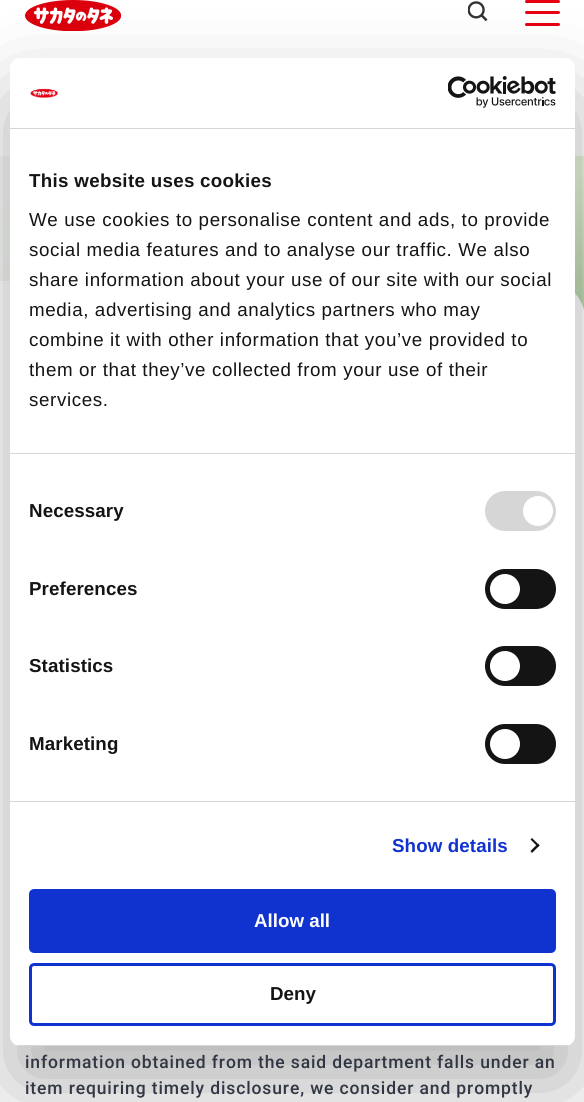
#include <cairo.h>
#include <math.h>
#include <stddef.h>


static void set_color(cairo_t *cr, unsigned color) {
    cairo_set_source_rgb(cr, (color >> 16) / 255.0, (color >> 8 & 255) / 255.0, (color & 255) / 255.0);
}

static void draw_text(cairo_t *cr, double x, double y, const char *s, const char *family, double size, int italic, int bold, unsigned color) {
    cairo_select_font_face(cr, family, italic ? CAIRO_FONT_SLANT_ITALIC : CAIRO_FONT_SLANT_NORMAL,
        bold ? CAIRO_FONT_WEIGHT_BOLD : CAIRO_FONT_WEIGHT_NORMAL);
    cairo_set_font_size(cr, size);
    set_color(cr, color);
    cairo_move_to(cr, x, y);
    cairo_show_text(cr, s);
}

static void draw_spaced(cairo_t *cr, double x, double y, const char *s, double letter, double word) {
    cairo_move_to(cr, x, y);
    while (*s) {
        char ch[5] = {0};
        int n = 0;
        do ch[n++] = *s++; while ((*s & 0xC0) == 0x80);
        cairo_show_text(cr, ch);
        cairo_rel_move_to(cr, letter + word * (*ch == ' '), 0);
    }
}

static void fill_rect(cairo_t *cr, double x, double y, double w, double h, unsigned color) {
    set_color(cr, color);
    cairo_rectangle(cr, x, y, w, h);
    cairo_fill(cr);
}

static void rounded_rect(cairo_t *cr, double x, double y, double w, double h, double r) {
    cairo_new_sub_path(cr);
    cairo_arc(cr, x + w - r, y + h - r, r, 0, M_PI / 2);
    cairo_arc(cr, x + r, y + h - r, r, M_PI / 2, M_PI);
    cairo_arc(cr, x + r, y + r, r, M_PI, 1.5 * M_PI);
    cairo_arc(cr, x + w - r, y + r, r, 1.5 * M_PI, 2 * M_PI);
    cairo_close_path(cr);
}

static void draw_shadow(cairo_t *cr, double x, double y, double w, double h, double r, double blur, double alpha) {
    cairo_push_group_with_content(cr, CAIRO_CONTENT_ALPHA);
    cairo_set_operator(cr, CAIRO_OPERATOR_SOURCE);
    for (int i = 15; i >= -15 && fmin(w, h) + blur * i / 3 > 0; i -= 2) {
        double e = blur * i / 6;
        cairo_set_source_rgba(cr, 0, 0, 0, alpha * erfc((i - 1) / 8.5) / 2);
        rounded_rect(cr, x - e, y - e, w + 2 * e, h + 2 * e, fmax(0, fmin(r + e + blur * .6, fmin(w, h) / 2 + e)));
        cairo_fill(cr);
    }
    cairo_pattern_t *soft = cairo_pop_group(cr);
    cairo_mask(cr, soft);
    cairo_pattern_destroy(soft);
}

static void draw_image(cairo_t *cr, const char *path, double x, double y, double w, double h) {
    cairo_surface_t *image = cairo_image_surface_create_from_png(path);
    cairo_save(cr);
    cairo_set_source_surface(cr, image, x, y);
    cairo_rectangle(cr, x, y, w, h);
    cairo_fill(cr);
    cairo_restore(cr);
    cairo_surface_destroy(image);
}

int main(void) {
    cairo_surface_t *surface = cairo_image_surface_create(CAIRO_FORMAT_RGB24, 584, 1102);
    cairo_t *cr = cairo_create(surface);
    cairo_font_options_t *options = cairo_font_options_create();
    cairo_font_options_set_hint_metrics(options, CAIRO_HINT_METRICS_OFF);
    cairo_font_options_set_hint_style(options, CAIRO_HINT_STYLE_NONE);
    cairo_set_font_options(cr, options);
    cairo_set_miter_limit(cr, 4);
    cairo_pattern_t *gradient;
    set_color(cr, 0xFFFFFF);
    cairo_paint(cr);
    draw_image(cr, "assets/img3.png", 25, 0, 96, 31);
    draw_image(cr, "assets/img4.png", 468, 1, 20, 20);
    set_color(cr, 0xE60013);
    rounded_rect(cr, 525, 0, 35, 3, 1.5);
    cairo_fill(cr);
    rounded_rect(cr, 525, 11, 35, 3, 1.5);
    cairo_fill(cr);
    rounded_rect(cr, 525, 23, 35, 3, 1.5);
    cairo_fill(cr);
    gradient = cairo_pattern_create_linear(479, 424, 106, 51);
    cairo_pattern_add_color_stop_rgba(gradient, 0, 0.71, 0.82, 0.659, 1);
    cairo_pattern_add_color_stop_rgba(gradient, 0.07, 0.78, 0.871, 0.725, 1);
    cairo_pattern_add_color_stop_rgba(gradient, 0.2, 0.906, 0.957, 0.859, 1);
    cairo_pattern_add_color_stop_rgba(gradient, 0.5, 0.933, 0.961, 0.922, 1);
    cairo_pattern_add_color_stop_rgba(gradient, 1, 0.969, 0.969, 0.969, 1);
    cairo_set_source(cr, gradient);
    cairo_pattern_destroy(gradient);
    cairo_rectangle(cr, 0, 156, 584, 155);
    cairo_fill(cr);
    set_color(cr, 0xFFFFFF);
    cairo_new_path(cr);
    cairo_move_to(cr, 0, 281);
    cairo_line_to(cr, 547, 281);
    cairo_curve_to(cr, 568, 281, 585, 298, 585, 319);
    cairo_line_to(cr, 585, 321);
    cairo_line_to(cr, 0, 321);
    cairo_close_path(cr);
    cairo_fill(cr);
    set_color(cr, 0x000000);
    draw_shadow(cr, 10, 98, 565, 988, 10, 42.5, 0.3);
    set_color(cr, 0xFFFFFF);
    rounded_rect(cr, 10, 58, 565, 988, 10);
    cairo_fill(cr);
    fill_rect(cr, 10, 128, 565, 1, 0xD6D6D6);
    draw_image(cr, "assets/img1.png", 30, 88, 28, 10);
    draw_image(cr, "assets/img2.png", 448, 76, 108, 32);
    fill_rect(cr, 10, 453, 565, 1, 0xD6D6D6);
    cairo_select_font_face(cr, "Liberation Sans", CAIRO_FONT_SLANT_NORMAL, CAIRO_FONT_WEIGHT_BOLD);
    cairo_set_font_size(cr, 18.75);
    set_color(cr, 0x141414);
    draw_spaced(cr, 29, 187, "This website uses cookies", 0.3, 0);
    cairo_select_font_face(cr, "Liberation Sans", CAIRO_FONT_SLANT_NORMAL, CAIRO_FONT_WEIGHT_NORMAL);
    draw_spaced(cr, 29, 226, "We use cookies to personalise content and ads, to provide", 0.62, 0);
    draw_spaced(cr, 29, 256, "social media features and to analyse our traffic. We also", 0.62, 0);
    draw_spaced(cr, 29, 286, "share information about your use of our site with our social", 0.62, 0);
    draw_spaced(cr, 29, 316, "media, advertising and analytics partners who may", 0.62, 0);
    draw_spaced(cr, 29, 346, "combine it with other information that you’ve provided to", 0.62, 0);
    draw_spaced(cr, 29, 376, "them or that they’ve collected from your use of their", 0.62, 0);
    draw_spaced(cr, 29, 406, "services.", 0.62, 0);
    fill_rect(cr, 10, 801, 565, 1, 0xD6D6D6);
    cairo_select_font_face(cr, "Liberation Sans", CAIRO_FONT_SLANT_NORMAL, CAIRO_FONT_WEIGHT_BOLD);
    set_color(cr, 0x141414);
    draw_spaced(cr, 29, 517, "Necessary", 0.1, 0);
    set_color(cr, 0xD6D6D6);
    rounded_rect(cr, 485, 491, 71, 40, 20);
    cairo_fill(cr);
    set_color(cr, 0xFFFFFF);
    cairo_arc(cr, 538, 511, 15, 0, 2 * M_PI);
    cairo_fill(cr);
    set_color(cr, 0x141414);
    draw_spaced(cr, 29, 595, "Preferences", 0.1, 0);
    rounded_rect(cr, 485, 569, 71, 40, 20);
    cairo_fill(cr);
    set_color(cr, 0xFFFFFF);
    cairo_arc(cr, 505, 589, 15, 0, 2 * M_PI);
    cairo_fill(cr);
    set_color(cr, 0x141414);
    draw_spaced(cr, 29, 672, "Statistics", 0.1, 0);
    rounded_rect(cr, 485, 646, 71, 40, 20);
    cairo_fill(cr);
    set_color(cr, 0xFFFFFF);
    cairo_arc(cr, 505, 666, 15, 0, 2 * M_PI);
    cairo_fill(cr);
    set_color(cr, 0x141414);
    draw_spaced(cr, 29, 750, "Marketing", 0.1, 0);
    rounded_rect(cr, 485, 724, 71, 40, 20);
    cairo_fill(cr);
    set_color(cr, 0xFFFFFF);
    cairo_arc(cr, 505, 744, 15, 0, 2 * M_PI);
    cairo_fill(cr);
    set_color(cr, 0x1032CF);
    draw_spaced(cr, 392, 852, "Show details", 0.1, 0);
    set_color(cr, 0x141414);
    cairo_new_path(cr);
    cairo_move_to(cr, 532, 838);
    cairo_line_to(cr, 539.5, 845.5);
    cairo_line_to(cr, 538, 847);
    cairo_line_to(cr, 530.5, 839.5);
    cairo_close_path(cr);
    cairo_fill(cr);
    cairo_new_path(cr);
    cairo_move_to(cr, 538, 843.5);
    cairo_line_to(cr, 539.5, 845.5);
    cairo_line_to(cr, 532, 853);
    cairo_line_to(cr, 530.5, 851);
    cairo_close_path(cr);
    cairo_fill(cr);
    cairo_save(cr);
    rounded_rect(cr, 10, 58, 565, 988, 10);
    cairo_clip(cr);
    fill_rect(cr, 10, 1045, 565, 1, 0xD6D6D6);
    cairo_restore(cr);
    set_color(cr, 0x1032CF);
    rounded_rect(cr, 30.5, 890.5, 524, 61, 3.5);
    cairo_fill_preserve(cr);
    cairo_set_line_width(cr, 3);
    cairo_stroke(cr);
    draw_text(cr, 254, 927, "Allow all", "Liberation Sans", 18.75, 0, 1, 0xFFFFFF);
    rounded_rect(cr, 30.5, 964.5, 524, 60, 3.5);
    set_color(cr, 0x1032CF);
    cairo_stroke(cr);
    draw_text(cr, 270, 1000, "Deny", "Liberation Sans", 18.75, 0, 1, 0x141414);
    cairo_select_font_face(cr, "Roboto Medium", CAIRO_FONT_SLANT_NORMAL, CAIRO_FONT_WEIGHT_NORMAL);
    cairo_set_font_size(cr, 17.5);
    set_color(cr, 0x303643);
    draw_spaced(cr, 25, 1068, "information obtained from the said department falls under an", 0.88, 0);
    draw_spaced(cr, 25, 1094, "item requiring timely disclosure, we consider and promptly", 0.88, 0);
    cairo_surface_write_to_png(surface, "output.png");
    cairo_font_options_destroy(options);
    cairo_destroy(cr);
    cairo_surface_destroy(surface);
    return 0;
}
